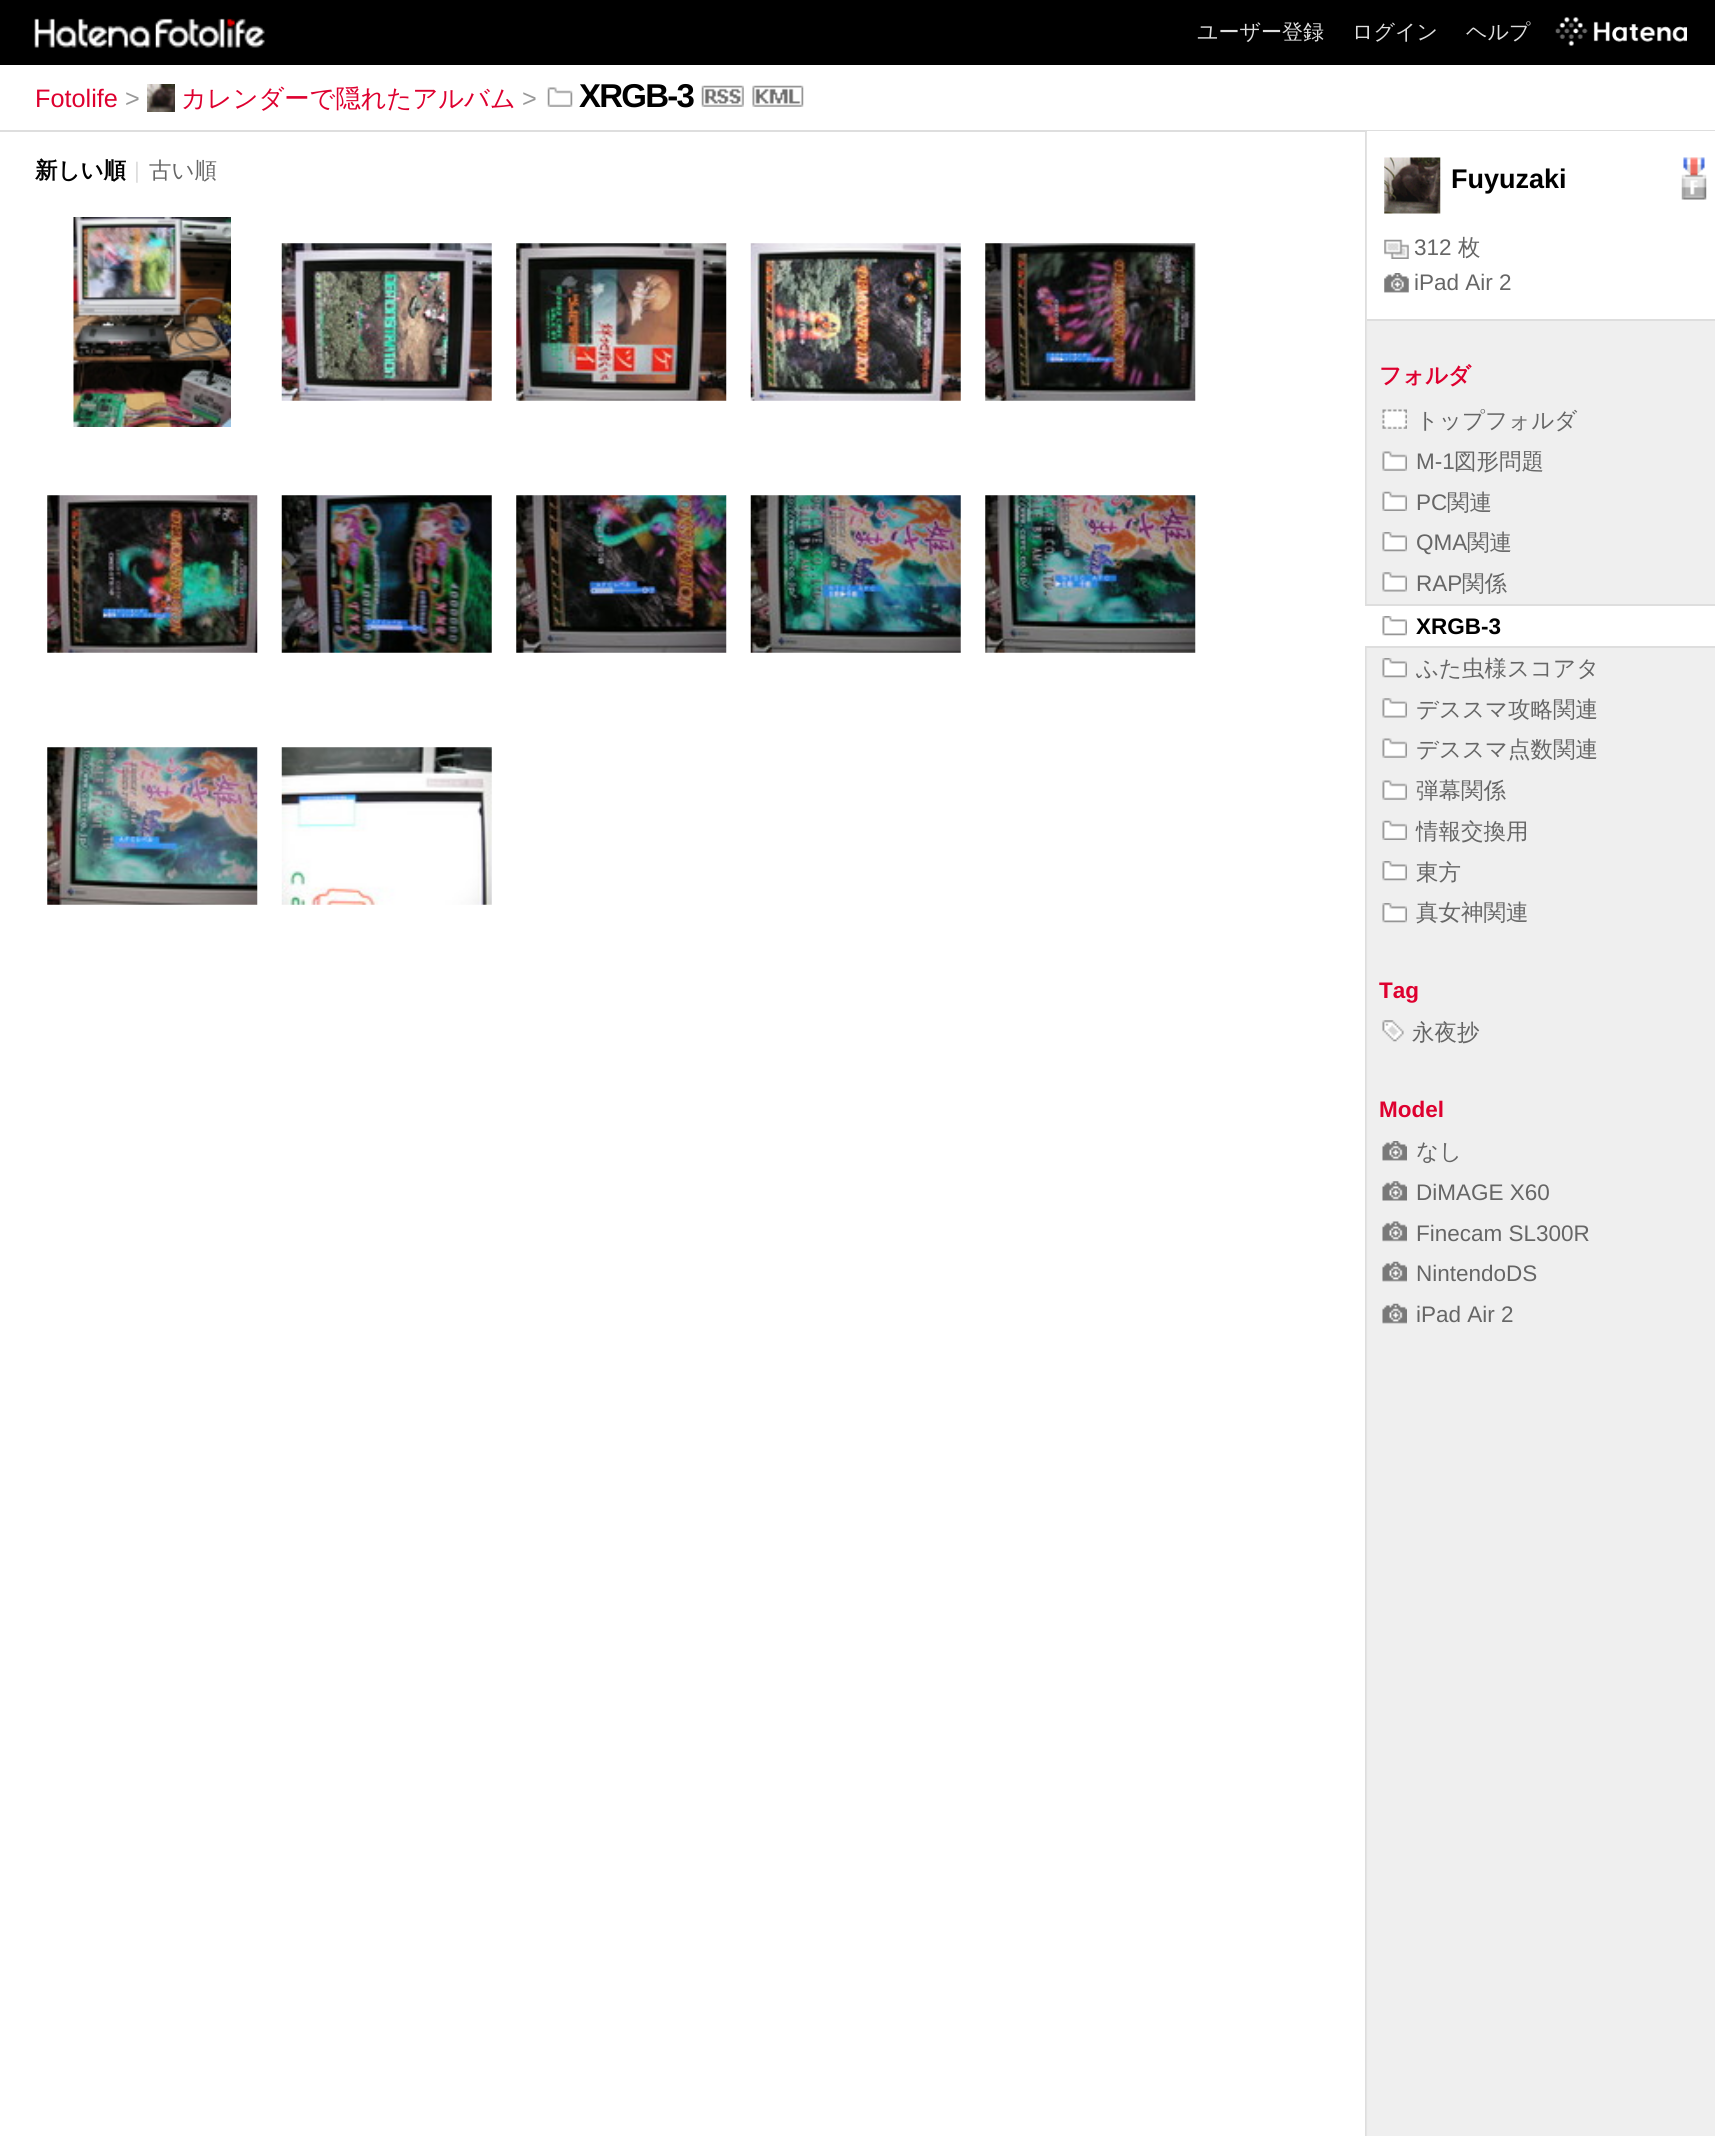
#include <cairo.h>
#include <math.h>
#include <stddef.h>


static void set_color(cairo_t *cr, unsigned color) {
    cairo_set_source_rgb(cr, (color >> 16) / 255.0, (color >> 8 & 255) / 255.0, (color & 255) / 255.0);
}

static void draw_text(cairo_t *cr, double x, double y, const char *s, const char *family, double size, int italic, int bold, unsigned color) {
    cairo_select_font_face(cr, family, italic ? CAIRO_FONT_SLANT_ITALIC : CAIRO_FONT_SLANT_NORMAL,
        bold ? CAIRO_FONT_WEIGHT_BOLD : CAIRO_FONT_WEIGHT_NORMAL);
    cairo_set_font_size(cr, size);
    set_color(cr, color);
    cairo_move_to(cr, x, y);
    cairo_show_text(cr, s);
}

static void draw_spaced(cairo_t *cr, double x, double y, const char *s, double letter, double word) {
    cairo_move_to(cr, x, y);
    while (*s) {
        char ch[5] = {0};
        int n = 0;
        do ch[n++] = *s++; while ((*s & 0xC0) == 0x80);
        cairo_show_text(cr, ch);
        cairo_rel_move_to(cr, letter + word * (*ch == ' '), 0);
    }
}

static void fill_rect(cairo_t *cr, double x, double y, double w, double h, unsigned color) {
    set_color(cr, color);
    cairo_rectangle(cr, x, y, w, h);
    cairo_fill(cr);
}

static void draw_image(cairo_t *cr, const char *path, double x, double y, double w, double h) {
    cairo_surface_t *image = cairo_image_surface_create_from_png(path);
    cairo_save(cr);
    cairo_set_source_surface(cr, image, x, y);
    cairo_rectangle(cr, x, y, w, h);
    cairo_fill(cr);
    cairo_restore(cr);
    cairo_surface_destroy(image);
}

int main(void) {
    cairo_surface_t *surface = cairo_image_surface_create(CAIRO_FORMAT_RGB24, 1715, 2136);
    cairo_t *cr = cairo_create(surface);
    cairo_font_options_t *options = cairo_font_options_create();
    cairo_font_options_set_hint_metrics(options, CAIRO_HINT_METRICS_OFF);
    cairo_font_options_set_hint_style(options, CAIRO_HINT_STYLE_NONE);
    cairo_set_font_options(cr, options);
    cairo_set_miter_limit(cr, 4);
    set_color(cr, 0xFFFFFF);
    cairo_paint(cr);
    draw_image(cr, "assets/img1.png", 1365, 132, 350, 2004);
    fill_rect(cr, 0, 0, 1715, 65, 0x000000);
    draw_image(cr, "assets/img2.png", 34, 18, 117, 30);
    draw_image(cr, "assets/img3.png", 155, 18, 110, 30);
    draw_text(cr, 1197, 39, "ユーザー登録", "WenQuanYi Zen Hei Medium", 21, 0, 0, 0xDEDEDE);
    draw_text(cr, 1352, 39, "ログイン", "WenQuanYi Zen Hei Medium", 21, 0, 0, 0xDEDEDE);
    draw_text(cr, 1466, 39, "ヘルプ", "WenQuanYi Zen Hei Medium", 21, 0, 0, 0xDEDEDE);
    draw_image(cr, "assets/img4.png", 1555, 17, 132, 29);
    fill_rect(cr, 0, 130, 1715, 2, 0xDEDEDE);
    draw_text(cr, 35, 107, "Fotolife", "Liberation Sans", 25.25, 0, 0, 0xDE002F);
    draw_text(cr, 125, 107, ">", "Liberation Sans", 25.25, 0, 0, 0x999999);
    draw_image(cr, "assets/img5.png", 147, 84, 28, 28);
    draw_text(cr, 181, 107, "カレンダーで隠れたアルバム", "WenQuanYi Zen Hei Medium", 25.25, 0, 0, 0xDE002F);
    draw_text(cr, 522, 107, ">", "Liberation Sans", 25.25, 0, 0, 0x999999);
    draw_image(cr, "assets/img6.png", 547, 87, 26, 20);
    cairo_select_font_face(cr, "Liberation Sans", CAIRO_FONT_SLANT_NORMAL, CAIRO_FONT_WEIGHT_BOLD);
    cairo_set_font_size(cr, 33);
    set_color(cr, 0x000000);
    draw_spaced(cr, 579, 107, "XRGB-3", -1.75, 0);
    draw_image(cr, "assets/img7.png", 701, 85, 43, 22);
    draw_image(cr, "assets/img8.png", 752, 85, 52, 22);
    draw_text(cr, 35, 178, "新しい順", "WenQuanYi Zen Hei", 22.5, 0, 1, 0x000000);
    draw_text(cr, 134, 178, "|", "Liberation Sans", 22.5, 0, 0, 0xDEDEDE);
    draw_text(cr, 149, 178, "古い順", "WenQuanYi Zen Hei Medium", 22.5, 0, 0, 0x666666);
    draw_image(cr, "assets/img9.png", 73, 217, 158, 210);
    draw_image(cr, "assets/img10.png", 281, 243, 211, 158);
    draw_image(cr, "assets/img11.png", 516, 243, 211, 158);
    draw_image(cr, "assets/img12.png", 750, 243, 211, 158);
    draw_image(cr, "assets/img13.png", 985, 243, 211, 158);
    draw_image(cr, "assets/img14.png", 47, 495, 211, 158);
    draw_image(cr, "assets/img15.png", 281, 495, 211, 158);
    draw_image(cr, "assets/img16.png", 516, 495, 211, 158);
    draw_image(cr, "assets/img17.png", 750, 495, 211, 158);
    draw_image(cr, "assets/img18.png", 985, 495, 211, 158);
    draw_image(cr, "assets/img19.png", 47, 747, 211, 158);
    draw_image(cr, "assets/img20.png", 281, 747, 211, 158);
    fill_rect(cr, 1367, 131, 348, 188, 0xFFFFFF);
    fill_rect(cr, 1367, 319, 348, 2, 0xDEDEDE);
    draw_image(cr, "assets/img21.png", 1384, 157, 57, 57);
    draw_text(cr, 1451, 188, "Fuyuzaki", "Liberation Sans", 27, 0, 1, 0x000000);
    draw_image(cr, "assets/img22.png", 1681, 157, 26, 43);
    draw_image(cr, "assets/img23.png", 1384, 239, 25, 20);
    draw_text(cr, 1414, 255, "312", "Liberation Sans", 22.5, 0, 0, 0x666666);
    draw_text(cr, 1458, 255, "枚", "WenQuanYi Zen Hei Medium", 22.5, 0, 0, 0x666666);
    draw_image(cr, "assets/img24.png", 1384, 273, 25, 20);
    draw_text(cr, 1414, 290, "iPad Air 2", "Liberation Sans", 22.5, 0, 0, 0x666666);
    draw_text(cr, 1379, 383, "フォルダ", "WenQuanYi Zen Hei", 22.5, 0, 1, 0xDE002F);
    draw_image(cr, "assets/img25.png", 1365, 401, 350, 532);
    draw_image(cr, "assets/img26.png", 1382, 409, 25, 20);
    draw_text(cr, 1416, 428, "トップフォルダ", "WenQuanYi Zen Hei Medium", 22.5, 0, 0, 0x666666);
    draw_image(cr, "assets/img27.png", 1382, 451, 25, 20);
    draw_text(cr, 1416, 469, "M-1", "Liberation Sans", 22.5, 0, 0, 0x666666);
    draw_text(cr, 1454, 469, "図形問題", "WenQuanYi Zen Hei Medium", 22.5, 0, 0, 0x666666);
    draw_image(cr, "assets/img28.png", 1382, 491, 25, 20);
    draw_text(cr, 1416, 510, "PC", "Liberation Sans", 22.5, 0, 0, 0x666666);
    draw_text(cr, 1447, 510, "関連", "WenQuanYi Zen Hei Medium", 22.5, 0, 0, 0x666666);
    draw_image(cr, "assets/img29.png", 1382, 532, 25, 20);
    draw_text(cr, 1416, 550, "QMA", "Liberation Sans", 22.5, 0, 0, 0x666666);
    draw_text(cr, 1467, 550, "関連", "WenQuanYi Zen Hei Medium", 22.5, 0, 0, 0x666666);
    draw_image(cr, "assets/img30.png", 1382, 572, 25, 20);
    draw_text(cr, 1416, 591, "RAP", "Liberation Sans", 22.5, 0, 0, 0x666666);
    draw_text(cr, 1462, 591, "関係", "WenQuanYi Zen Hei Medium", 22.5, 0, 0, 0x666666);
    fill_rect(cr, 1365, 606, 350, 40, 0xFFFFFF);
    fill_rect(cr, 1365, 604, 350, 2, 0xDEDEDE);
    fill_rect(cr, 1365, 646, 350, 2, 0xDEDEDE);
    draw_image(cr, "assets/img31.png", 1382, 616, 25, 20);
    draw_text(cr, 1416, 634, "XRGB-3", "Liberation Sans", 22.5, 0, 1, 0x000000);
    draw_image(cr, "assets/img29.png", 1382, 658, 25, 20);
    draw_text(cr, 1416, 676, "ふた虫様スコアタ", "WenQuanYi Zen Hei Medium", 22.5, 0, 0, 0x666666);
    draw_image(cr, "assets/img30.png", 1382, 698, 25, 20);
    draw_text(cr, 1416, 717, "デススマ攻略関連", "WenQuanYi Zen Hei Medium", 22.5, 0, 0, 0x666666);
    draw_image(cr, "assets/img27.png", 1382, 738, 25, 20);
    draw_text(cr, 1416, 757, "デススマ点数関連", "WenQuanYi Zen Hei Medium", 22.5, 0, 0, 0x666666);
    draw_image(cr, "assets/img27.png", 1382, 780, 25, 20);
    draw_text(cr, 1416, 798, "弾幕関係", "WenQuanYi Zen Hei Medium", 22.5, 0, 0, 0x666666);
    draw_image(cr, "assets/img28.png", 1382, 820, 25, 20);
    draw_text(cr, 1416, 839, "情報交換用", "WenQuanYi Zen Hei Medium", 22.5, 0, 0, 0x666666);
    draw_image(cr, "assets/img29.png", 1382, 861, 25, 20);
    draw_text(cr, 1416, 880, "東方", "WenQuanYi Zen Hei Medium", 22.5, 0, 0, 0x666666);
    draw_image(cr, "assets/img29.png", 1382, 903, 25, 20);
    draw_text(cr, 1416, 920, "真女神関連", "WenQuanYi Zen Hei Medium", 22.5, 0, 0, 0x666666);
    draw_text(cr, 1379, 998, "Tag", "Liberation Sans", 22.5, 0, 1, 0xDE002F);
    draw_image(cr, "assets/img32.png", 1365, 1012, 350, 40);
    draw_image(cr, "assets/img33.png", 1382, 1020, 22, 22);
    draw_text(cr, 1412, 1040, "永夜抄", "WenQuanYi Zen Hei Medium", 22.5, 0, 0, 0x666666);
    draw_text(cr, 1379, 1117, "Model", "Liberation Sans", 22.5, 0, 1, 0xDE002F);
    draw_image(cr, "assets/img34.png", 1382, 1141, 25, 20);
    draw_text(cr, 1416, 1159, "なし", "WenQuanYi Zen Hei Medium", 22.5, 0, 0, 0x666666);
    draw_image(cr, "assets/img35.png", 1382, 1181, 25, 20);
    draw_text(cr, 1416, 1200, "DiMAGE X60", "Liberation Sans", 22.5, 0, 0, 0x666666);
    draw_image(cr, "assets/img36.png", 1382, 1221, 25, 21);
    draw_text(cr, 1416, 1241, "Finecam SL300R", "Liberation Sans", 22.5, 0, 0, 0x666666);
    draw_image(cr, "assets/img37.png", 1382, 1261, 25, 21);
    draw_text(cr, 1416, 1281, "NintendoDS", "Liberation Sans", 22.5, 0, 0, 0x666666);
    draw_image(cr, "assets/img37.png", 1382, 1303, 25, 21);
    draw_text(cr, 1416, 1322, "iPad Air 2", "Liberation Sans", 22.5, 0, 0, 0x666666);
    cairo_surface_write_to_png(surface, "output.png");
    cairo_font_options_destroy(options);
    cairo_destroy(cr);
    cairo_surface_destroy(surface);
    return 0;
}
